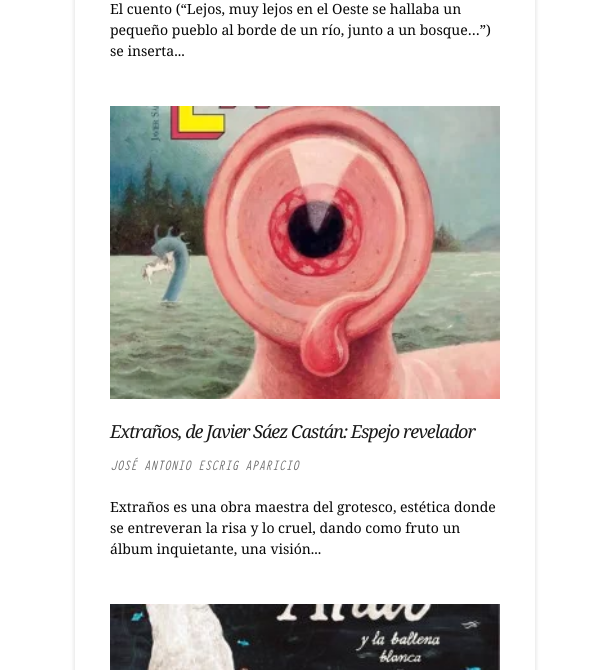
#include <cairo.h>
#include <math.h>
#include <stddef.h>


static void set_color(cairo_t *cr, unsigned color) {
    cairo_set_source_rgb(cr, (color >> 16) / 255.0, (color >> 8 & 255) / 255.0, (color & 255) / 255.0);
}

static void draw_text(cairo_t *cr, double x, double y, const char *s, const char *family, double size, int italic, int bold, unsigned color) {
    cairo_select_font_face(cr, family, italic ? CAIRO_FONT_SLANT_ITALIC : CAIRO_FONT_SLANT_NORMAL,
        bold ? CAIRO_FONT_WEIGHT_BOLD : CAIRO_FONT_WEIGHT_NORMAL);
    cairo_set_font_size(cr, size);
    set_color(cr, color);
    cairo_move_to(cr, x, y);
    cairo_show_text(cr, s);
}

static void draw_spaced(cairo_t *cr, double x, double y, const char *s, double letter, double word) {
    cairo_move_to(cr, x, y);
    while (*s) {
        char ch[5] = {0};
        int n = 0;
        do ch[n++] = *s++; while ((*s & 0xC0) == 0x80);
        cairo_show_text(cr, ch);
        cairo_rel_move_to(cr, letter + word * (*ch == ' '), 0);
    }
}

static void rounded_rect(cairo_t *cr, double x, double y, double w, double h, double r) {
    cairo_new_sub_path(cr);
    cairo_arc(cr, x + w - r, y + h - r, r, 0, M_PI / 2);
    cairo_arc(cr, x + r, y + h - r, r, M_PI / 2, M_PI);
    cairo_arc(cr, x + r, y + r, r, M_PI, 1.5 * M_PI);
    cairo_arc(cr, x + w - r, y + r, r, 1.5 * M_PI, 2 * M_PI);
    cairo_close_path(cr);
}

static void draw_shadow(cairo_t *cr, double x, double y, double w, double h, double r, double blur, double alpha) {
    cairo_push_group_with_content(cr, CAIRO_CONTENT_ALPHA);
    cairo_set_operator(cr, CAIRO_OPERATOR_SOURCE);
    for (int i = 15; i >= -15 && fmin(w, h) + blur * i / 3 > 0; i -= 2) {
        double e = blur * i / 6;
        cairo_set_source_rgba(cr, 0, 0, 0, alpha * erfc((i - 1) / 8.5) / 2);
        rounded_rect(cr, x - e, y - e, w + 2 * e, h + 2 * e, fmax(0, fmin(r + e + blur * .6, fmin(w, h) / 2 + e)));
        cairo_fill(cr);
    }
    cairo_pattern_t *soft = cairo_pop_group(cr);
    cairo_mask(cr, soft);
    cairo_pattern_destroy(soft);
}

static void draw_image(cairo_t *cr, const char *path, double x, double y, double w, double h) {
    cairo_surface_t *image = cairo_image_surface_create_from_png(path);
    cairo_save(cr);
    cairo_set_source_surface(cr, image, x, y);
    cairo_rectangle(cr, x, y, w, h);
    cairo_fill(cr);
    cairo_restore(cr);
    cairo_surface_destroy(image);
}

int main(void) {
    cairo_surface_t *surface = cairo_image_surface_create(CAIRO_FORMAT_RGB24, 609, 670);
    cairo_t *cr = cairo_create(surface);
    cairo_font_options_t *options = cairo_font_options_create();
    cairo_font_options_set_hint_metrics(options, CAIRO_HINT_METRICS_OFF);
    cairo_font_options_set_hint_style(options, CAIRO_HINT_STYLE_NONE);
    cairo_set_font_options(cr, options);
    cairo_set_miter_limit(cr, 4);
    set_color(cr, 0xFFFFFF);
    cairo_paint(cr);
    cairo_save(cr);
    cairo_set_fill_rule(cr, CAIRO_FILL_RULE_EVEN_ODD);
    cairo_new_path(cr);
    cairo_move_to(cr, 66, 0);
    cairo_line_to(cr, 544, 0);
    cairo_line_to(cr, 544, 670);
    cairo_line_to(cr, 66, 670);
    cairo_close_path(cr);
    cairo_move_to(cr, 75, -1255);
    cairo_line_to(cr, 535, -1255);
    cairo_line_to(cr, 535, 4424);
    cairo_line_to(cr, 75, 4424);
    cairo_close_path(cr);
    cairo_clip(cr);
    set_color(cr, 0x000000);
    draw_shadow(cr, 75, -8, 460, 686, 0, 2.5, 0.15);
    cairo_restore(cr);
    draw_text(cr, 110, 14, "El cuento (“Lejos, muy lejos en el Oeste se hallaba un", "Noto Serif", 14, 0, 0, 0x070707);
    draw_text(cr, 110, 35, "pequeño pueblo al borde de un río, junto a un bosque…”)", "Noto Serif", 14, 0, 0, 0x070707);
    draw_text(cr, 110, 56, "se inserta...", "Noto Serif", 14, 0, 0, 0x070707);
    draw_image(cr, "assets/img1.png", 110, 106, 390, 293);
    cairo_select_font_face(cr, "Noto Serif", CAIRO_FONT_SLANT_ITALIC, CAIRO_FONT_WEIGHT_NORMAL);
    cairo_set_font_size(cr, 18);
    set_color(cr, 0x1A1A1A);
    draw_spaced(cr, 110, 438, "Extraños, de Javier Sáez Castán: Espejo revelador", -1, 0);
    draw_text(cr, 110, 470, "JOSÉ ANTONIO ESCRIG APARICIO", "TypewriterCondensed", 15, 1, 0, 0x6D6D6D);
    draw_text(cr, 110, 512, "Extraños es una obra maestra del grotesco, estética donde", "Noto Serif", 14, 0, 0, 0x070707);
    draw_text(cr, 110, 533, "se entreveran la risa y lo cruel, dando como fruto un", "Noto Serif", 14, 0, 0, 0x070707);
    draw_text(cr, 110, 554, "álbum inquietante, una visión...", "Noto Serif", 14, 0, 0, 0x070707);
    draw_image(cr, "assets/img2.png", 110, 604, 390, 66);
    cairo_surface_write_to_png(surface, "output.png");
    cairo_font_options_destroy(options);
    cairo_destroy(cr);
    cairo_surface_destroy(surface);
    return 0;
}
